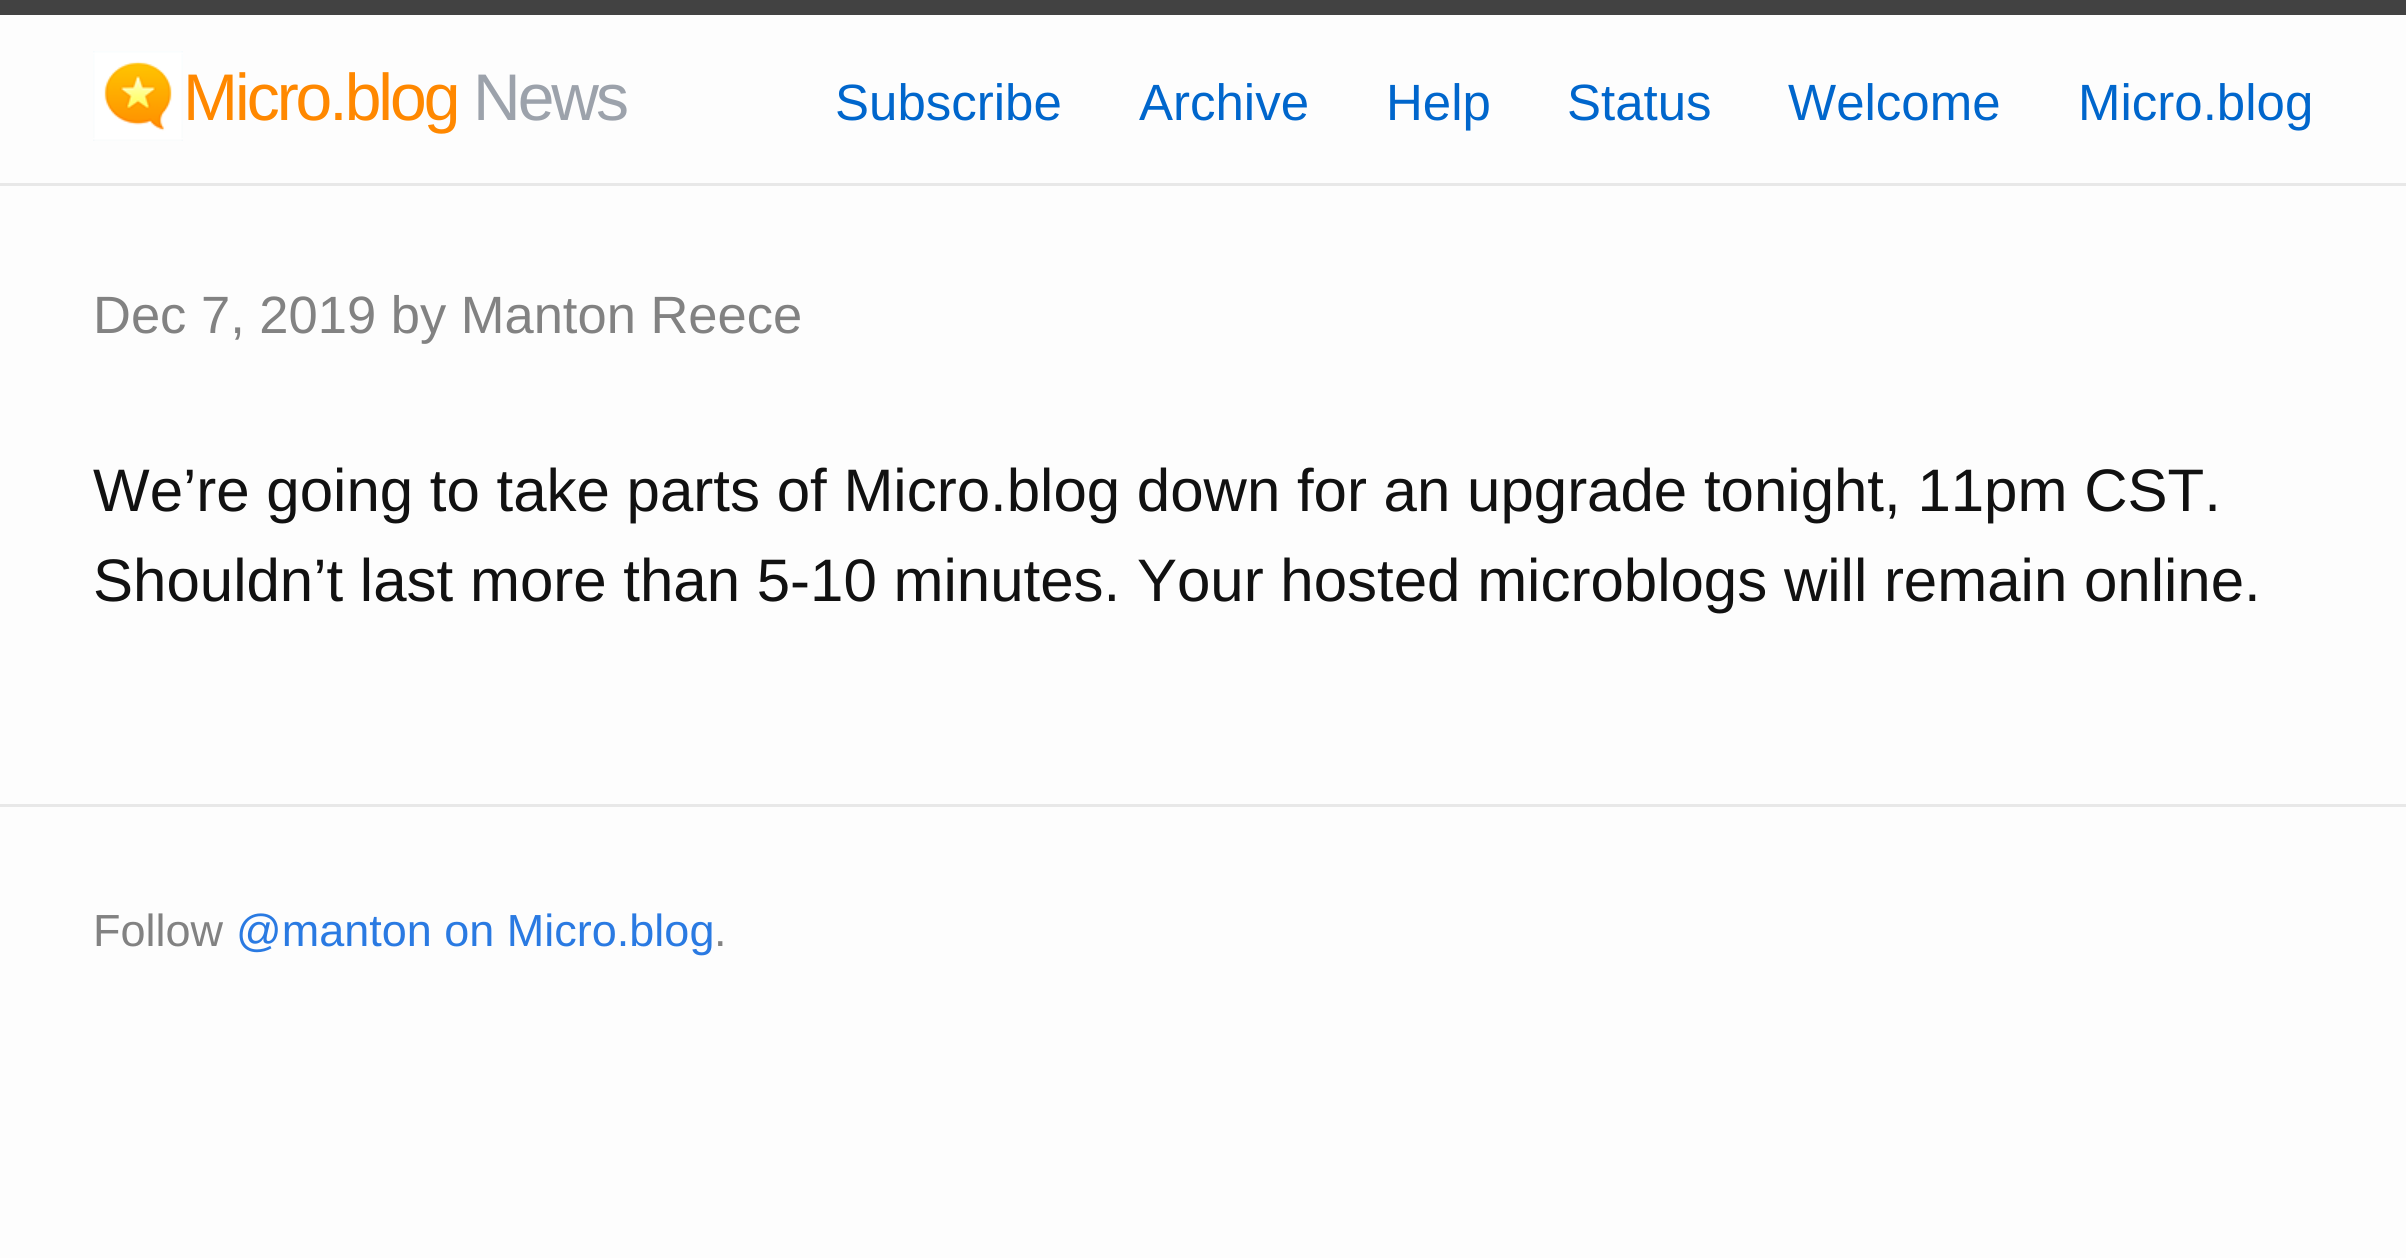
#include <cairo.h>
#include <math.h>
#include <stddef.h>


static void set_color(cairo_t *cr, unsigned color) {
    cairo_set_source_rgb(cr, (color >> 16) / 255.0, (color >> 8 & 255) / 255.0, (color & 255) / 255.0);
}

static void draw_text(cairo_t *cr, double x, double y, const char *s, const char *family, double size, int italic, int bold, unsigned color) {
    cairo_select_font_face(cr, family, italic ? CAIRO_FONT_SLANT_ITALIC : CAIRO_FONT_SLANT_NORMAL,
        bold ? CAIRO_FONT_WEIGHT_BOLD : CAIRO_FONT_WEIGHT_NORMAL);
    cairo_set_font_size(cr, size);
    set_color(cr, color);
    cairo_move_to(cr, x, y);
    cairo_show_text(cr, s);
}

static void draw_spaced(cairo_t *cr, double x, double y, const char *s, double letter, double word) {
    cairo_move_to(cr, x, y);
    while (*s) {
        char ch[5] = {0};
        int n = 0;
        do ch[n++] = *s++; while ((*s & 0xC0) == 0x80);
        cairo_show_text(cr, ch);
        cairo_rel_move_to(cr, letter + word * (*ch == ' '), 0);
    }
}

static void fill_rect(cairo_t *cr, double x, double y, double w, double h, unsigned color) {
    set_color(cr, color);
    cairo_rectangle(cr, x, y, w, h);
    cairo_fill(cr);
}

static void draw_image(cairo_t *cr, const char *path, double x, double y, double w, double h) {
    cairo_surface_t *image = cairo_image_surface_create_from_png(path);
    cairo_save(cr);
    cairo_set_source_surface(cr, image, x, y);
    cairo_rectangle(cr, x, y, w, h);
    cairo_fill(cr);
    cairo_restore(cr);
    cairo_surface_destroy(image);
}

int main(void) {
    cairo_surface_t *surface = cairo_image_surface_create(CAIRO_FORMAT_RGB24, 2406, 1258);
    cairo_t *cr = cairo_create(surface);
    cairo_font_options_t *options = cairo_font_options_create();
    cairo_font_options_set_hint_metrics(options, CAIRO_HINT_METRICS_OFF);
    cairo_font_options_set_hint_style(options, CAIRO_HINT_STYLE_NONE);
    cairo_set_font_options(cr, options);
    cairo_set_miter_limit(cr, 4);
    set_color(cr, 0xFDFDFD);
    cairo_paint(cr);
    fill_rect(cr, 0, 0, 2406, 15, 0x424242);
    fill_rect(cr, 0, 183, 2406, 3, 0xE8E8E8);
    draw_image(cr, "assets/img1.png", 93, 51, 90, 90);
    cairo_select_font_face(cr, "Liberation Sans", CAIRO_FONT_SLANT_NORMAL, CAIRO_FONT_WEIGHT_NORMAL);
    cairo_set_font_size(cr, 66);
    set_color(cr, 0xFF8800);
    draw_spaced(cr, 183, 120, "Micro.blog", -3, 0);
    set_color(cr, 0x9CA2AB);
    draw_spaced(cr, 473, 120, "News", -3, 0);
    draw_text(cr, 835, 120, "Subscribe", "Liberation Sans", 51, 0, 0, 0x0066CC);
    draw_text(cr, 1139, 120, "Archive", "Liberation Sans", 51, 0, 0, 0x0066CC);
    draw_text(cr, 1386, 120, "Help", "Liberation Sans", 51, 0, 0, 0x0066CC);
    draw_text(cr, 1567, 120, "Status", "Liberation Sans", 51, 0, 0, 0x0066CC);
    draw_text(cr, 1788, 120, "Welcome", "Liberation Sans", 51, 0, 0, 0x0066CC);
    draw_text(cr, 2078, 120, "Micro.blog", "Liberation Sans", 51, 0, 0, 0x0066CC);
    draw_text(cr, 93, 333, "Dec 7, 2019 by Manton Reece", "Liberation Sans", 52.5, 0, 0, 0x828282);
    draw_text(cr, 93, 511, "We’re going to take parts of Micro.blog down for an upgrade tonight, 11pm CST.", "Liberation Sans", 60, 0, 0, 0x111111);
    draw_text(cr, 93, 601, "Shouldn’t last more than 5-10 minutes. Your hosted microblogs will remain online.", "Liberation Sans", 60, 0, 0, 0x111111);
    fill_rect(cr, 0, 804, 2406, 3, 0xE8E8E8);
    draw_text(cr, 93, 946, "Follow", "Liberation Sans", 45, 0, 0, 0x828282);
    draw_text(cr, 236, 946, "@manton on Micro.blog", "Liberation Sans", 45, 0, 0, 0x2A7AE2);
    draw_text(cr, 714, 946, ".", "Liberation Sans", 45, 0, 0, 0x828282);
    cairo_surface_write_to_png(surface, "output.png");
    cairo_font_options_destroy(options);
    cairo_destroy(cr);
    cairo_surface_destroy(surface);
    return 0;
}
